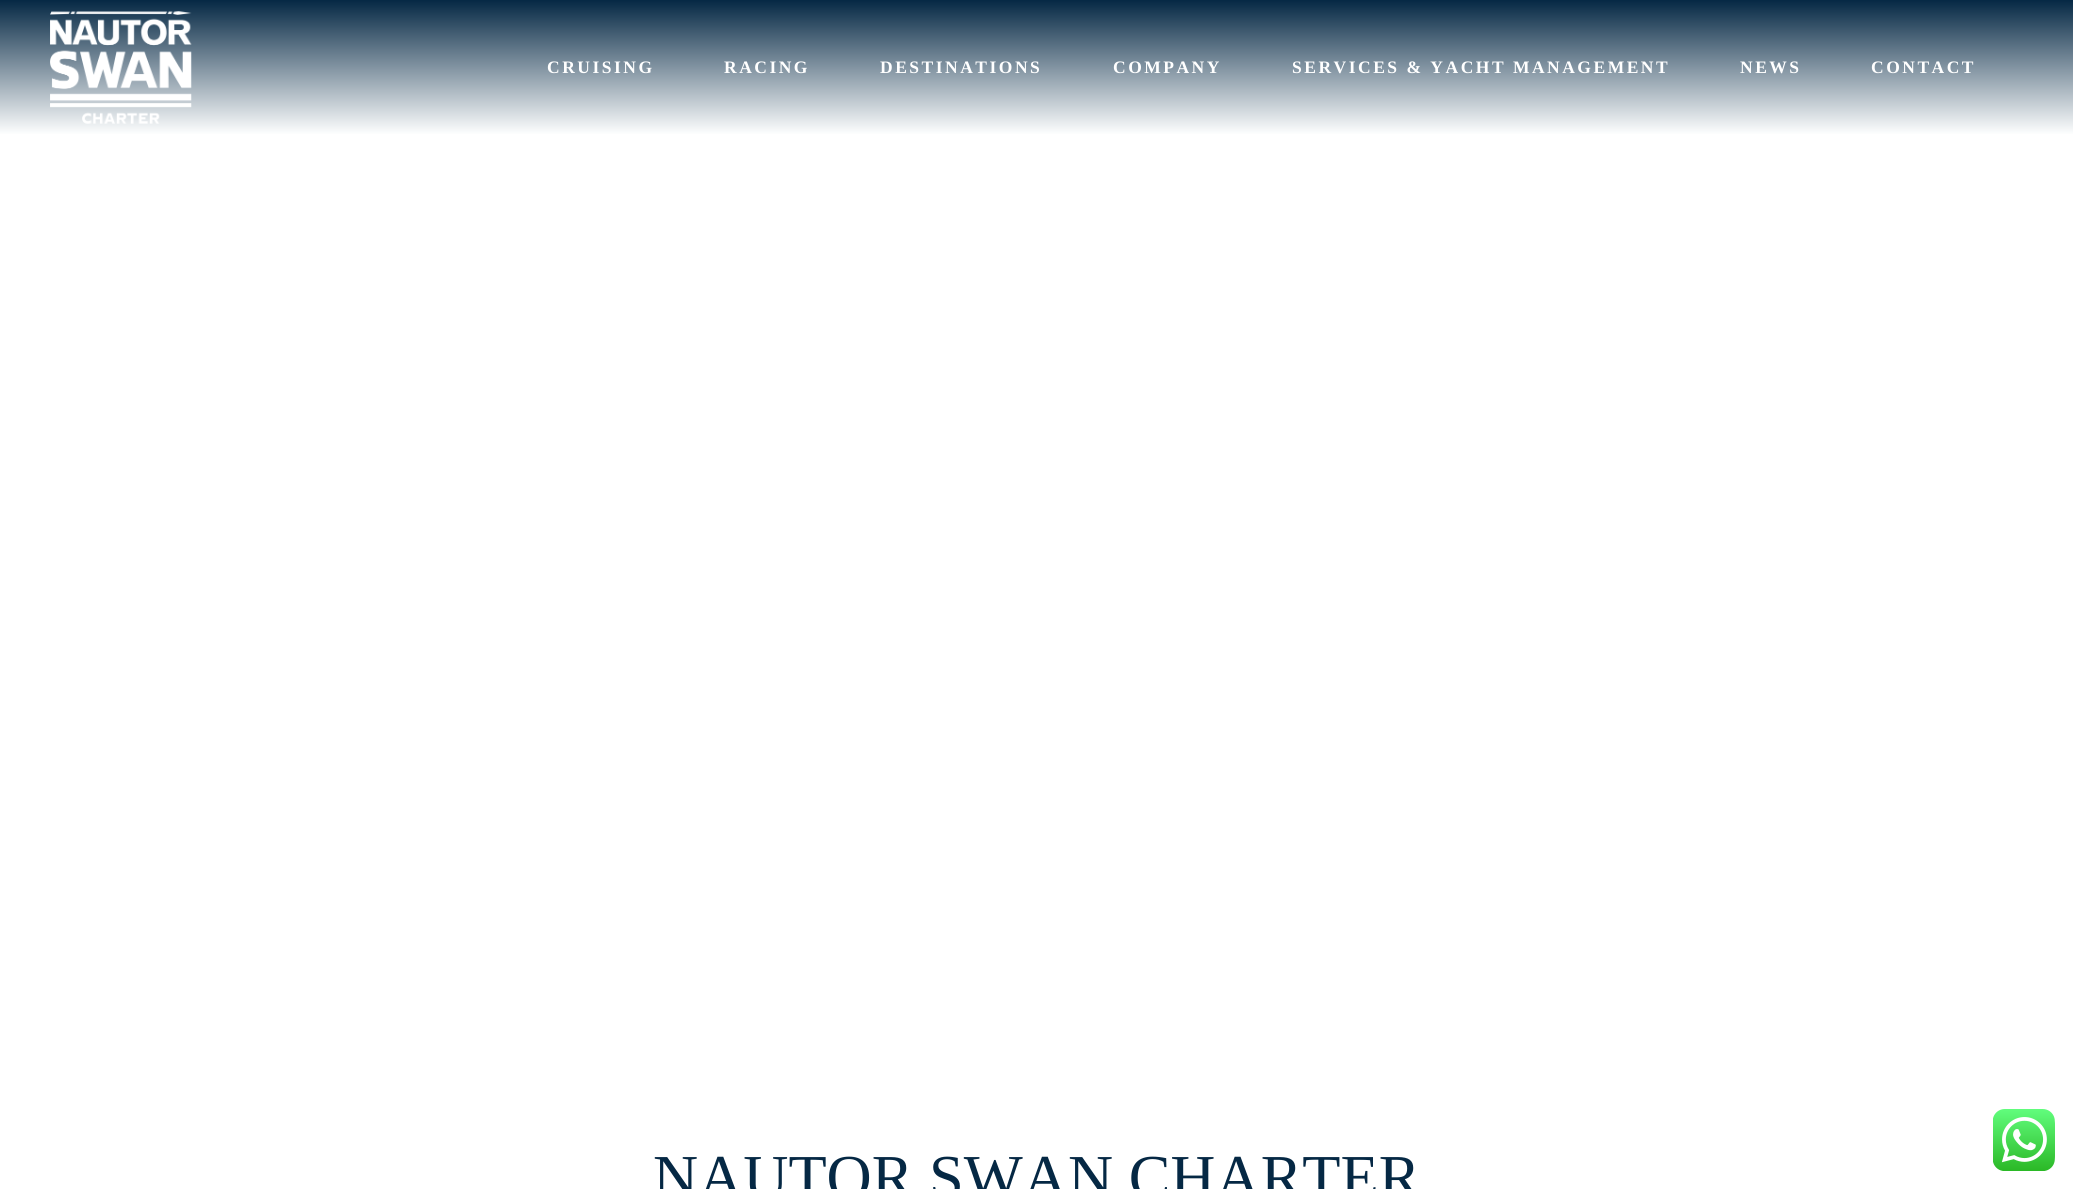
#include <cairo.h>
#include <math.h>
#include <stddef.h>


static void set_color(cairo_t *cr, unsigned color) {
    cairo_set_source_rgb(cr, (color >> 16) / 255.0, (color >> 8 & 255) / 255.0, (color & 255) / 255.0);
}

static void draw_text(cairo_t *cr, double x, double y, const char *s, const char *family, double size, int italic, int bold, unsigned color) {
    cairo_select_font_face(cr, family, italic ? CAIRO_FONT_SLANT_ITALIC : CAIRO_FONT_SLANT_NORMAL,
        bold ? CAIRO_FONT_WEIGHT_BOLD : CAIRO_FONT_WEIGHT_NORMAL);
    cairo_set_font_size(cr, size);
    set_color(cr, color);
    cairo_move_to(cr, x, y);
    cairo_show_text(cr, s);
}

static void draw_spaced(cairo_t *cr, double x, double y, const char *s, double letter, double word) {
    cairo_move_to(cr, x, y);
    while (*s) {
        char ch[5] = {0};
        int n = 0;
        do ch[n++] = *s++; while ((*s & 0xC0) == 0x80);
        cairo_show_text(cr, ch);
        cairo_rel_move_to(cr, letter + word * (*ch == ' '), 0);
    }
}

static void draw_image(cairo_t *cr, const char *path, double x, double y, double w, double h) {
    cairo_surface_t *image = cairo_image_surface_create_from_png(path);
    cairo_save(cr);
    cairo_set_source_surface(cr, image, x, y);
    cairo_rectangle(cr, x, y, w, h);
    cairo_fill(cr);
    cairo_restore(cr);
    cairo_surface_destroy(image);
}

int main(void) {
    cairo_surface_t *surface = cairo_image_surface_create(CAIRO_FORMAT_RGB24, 2073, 1189);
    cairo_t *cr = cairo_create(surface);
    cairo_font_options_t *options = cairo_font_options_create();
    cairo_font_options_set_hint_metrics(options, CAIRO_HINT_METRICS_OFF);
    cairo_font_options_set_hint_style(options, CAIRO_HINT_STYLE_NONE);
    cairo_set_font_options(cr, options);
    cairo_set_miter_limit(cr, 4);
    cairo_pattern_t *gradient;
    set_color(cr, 0xFFFFFF);
    cairo_paint(cr);
    gradient = cairo_pattern_create_linear(1037, 134, 1037, 0);
    cairo_pattern_add_color_stop_rgba(gradient, 0, 0.992, 0.996, 0.996, 1);
    cairo_pattern_add_color_stop_rgba(gradient, 1, 0.02, 0.157, 0.267, 1);
    cairo_set_source(cr, gradient);
    cairo_pattern_destroy(gradient);
    cairo_rectangle(cr, 0, 0, 2073, 134);
    cairo_fill(cr);
    draw_image(cr, "assets/img1.png", 50, 11, 142, 113);
    cairo_select_font_face(cr, "Liberation Serif", CAIRO_FONT_SLANT_NORMAL, CAIRO_FONT_WEIGHT_BOLD);
    cairo_set_font_size(cr, 17.5);
    set_color(cr, 0xFFFFFF);
    draw_spaced(cr, 547, 73, "CRUISING", 2.5, 0);
    draw_spaced(cr, 724, 73, "RACING", 2.5, 0);
    draw_spaced(cr, 880, 73, "DESTINATIONS", 2.5, 0);
    draw_spaced(cr, 1113, 73, "COMPANY", 2.5, 0);
    draw_spaced(cr, 1292, 73, "SERVICES & YACHT MANAGEMENT", 2.5, 0);
    draw_spaced(cr, 1740, 73, "NEWS", 2.5, 0);
    draw_spaced(cr, 1871, 73, "CONTACT", 2.5, 0);
    draw_text(cr, 653, 1198, "NAUTOR SWAN CHARTER", "Liberation Serif", 62.5, 0, 0, 0x052844);
    draw_image(cr, "assets/img2.png", 1993, 1109, 62, 62);
    cairo_surface_write_to_png(surface, "output.png");
    cairo_font_options_destroy(options);
    cairo_destroy(cr);
    cairo_surface_destroy(surface);
    return 0;
}
